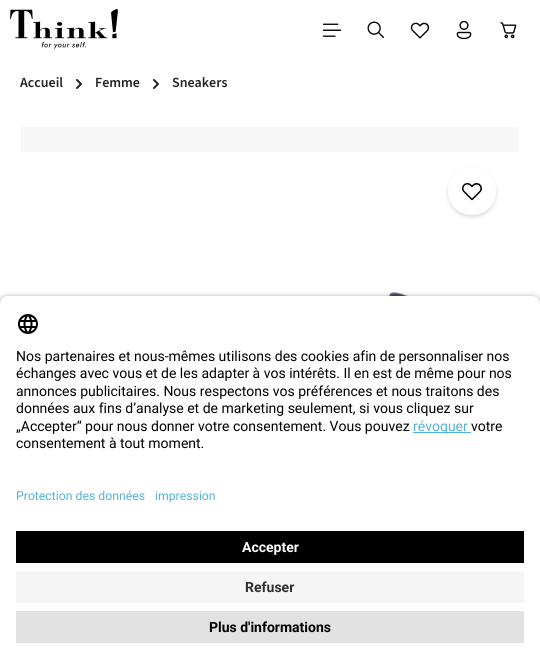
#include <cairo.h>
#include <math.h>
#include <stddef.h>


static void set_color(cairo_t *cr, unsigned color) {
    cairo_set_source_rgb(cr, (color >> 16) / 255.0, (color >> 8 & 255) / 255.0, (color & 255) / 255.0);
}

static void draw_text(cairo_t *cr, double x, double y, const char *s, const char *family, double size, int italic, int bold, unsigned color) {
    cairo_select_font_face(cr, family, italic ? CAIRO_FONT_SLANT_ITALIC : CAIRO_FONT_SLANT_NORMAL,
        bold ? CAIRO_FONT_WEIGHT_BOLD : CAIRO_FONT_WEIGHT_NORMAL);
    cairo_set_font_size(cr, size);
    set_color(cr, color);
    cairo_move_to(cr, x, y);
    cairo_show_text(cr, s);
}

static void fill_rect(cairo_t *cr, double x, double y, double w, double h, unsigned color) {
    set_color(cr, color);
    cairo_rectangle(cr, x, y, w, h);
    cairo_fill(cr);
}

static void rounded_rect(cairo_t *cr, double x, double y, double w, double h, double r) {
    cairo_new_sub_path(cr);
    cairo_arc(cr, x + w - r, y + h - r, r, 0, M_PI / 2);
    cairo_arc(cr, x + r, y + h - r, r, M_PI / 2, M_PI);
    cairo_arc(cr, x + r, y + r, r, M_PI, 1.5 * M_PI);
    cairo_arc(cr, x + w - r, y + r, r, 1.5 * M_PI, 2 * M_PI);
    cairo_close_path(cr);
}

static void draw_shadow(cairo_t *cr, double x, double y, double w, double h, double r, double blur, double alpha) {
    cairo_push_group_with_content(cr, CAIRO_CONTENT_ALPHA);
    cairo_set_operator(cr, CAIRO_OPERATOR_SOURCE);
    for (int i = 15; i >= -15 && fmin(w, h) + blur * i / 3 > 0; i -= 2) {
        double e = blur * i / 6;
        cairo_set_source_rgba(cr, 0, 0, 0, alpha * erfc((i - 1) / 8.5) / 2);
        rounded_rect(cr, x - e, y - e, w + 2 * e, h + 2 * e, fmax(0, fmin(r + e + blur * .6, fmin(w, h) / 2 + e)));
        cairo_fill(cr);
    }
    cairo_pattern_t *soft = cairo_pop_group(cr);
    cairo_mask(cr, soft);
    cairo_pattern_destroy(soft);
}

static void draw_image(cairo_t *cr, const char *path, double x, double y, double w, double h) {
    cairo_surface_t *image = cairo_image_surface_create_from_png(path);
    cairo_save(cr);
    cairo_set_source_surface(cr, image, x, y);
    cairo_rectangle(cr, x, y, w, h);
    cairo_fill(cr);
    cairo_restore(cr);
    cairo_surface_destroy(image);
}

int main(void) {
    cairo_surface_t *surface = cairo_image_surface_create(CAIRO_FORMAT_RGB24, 540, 671);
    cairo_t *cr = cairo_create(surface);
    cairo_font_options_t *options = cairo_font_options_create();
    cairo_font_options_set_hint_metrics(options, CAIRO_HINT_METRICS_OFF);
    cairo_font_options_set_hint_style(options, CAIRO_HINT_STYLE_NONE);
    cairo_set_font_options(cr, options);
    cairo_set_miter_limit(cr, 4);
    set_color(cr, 0xFFFFFF);
    cairo_paint(cr);
    draw_image(cr, "assets/img1.png", 10, 9, 108, 40);
    draw_image(cr, "assets/img2.png", 322, 23, 20, 14);
    draw_image(cr, "assets/img3.png", 367, 21, 17, 17);
    draw_image(cr, "assets/img4.png", 410, 22, 20, 17);
    draw_image(cr, "assets/img5.png", 456, 20, 16, 20);
    draw_image(cr, "assets/img6.png", 500, 22, 17, 17);
    draw_text(cr, 20, 87, "Accueil", "Source Sans 3 SemiBold", 14, 0, 0, 0x212427);
    draw_image(cr, "assets/img7.png", 76, 79, 6, 10);
    draw_text(cr, 95, 87, "Femme", "Source Sans 3 SemiBold", 14, 0, 0, 0x212427);
    draw_image(cr, "assets/img7.png", 153, 79, 6, 10);
    draw_text(cr, 172, 87, "Sneakers", "Source Sans 3 SemiBold", 14, 0, 0, 0x212427);
    fill_rect(cr, 21, 127, 498, 25, 0xF7F7F8);
    draw_image(cr, "assets/img8.png", 21, 152, 498, 144);
    cairo_save(cr);
    cairo_set_fill_rule(cr, CAIRO_FILL_RULE_EVEN_ODD);
    cairo_new_path(cr);
    cairo_move_to(cr, 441, 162);
    cairo_line_to(cr, 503, 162);
    cairo_line_to(cr, 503, 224);
    cairo_line_to(cr, 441, 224);
    cairo_close_path(cr);
    cairo_move_to(cr, 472, 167);
    cairo_curve_to(cr, 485.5, 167, 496, 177.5, 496, 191);
    cairo_curve_to(cr, 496, 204.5, 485.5, 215, 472, 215);
    cairo_curve_to(cr, 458.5, 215, 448, 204.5, 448, 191);
    cairo_curve_to(cr, 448, 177.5, 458.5, 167, 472, 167);
    cairo_close_path(cr);
    cairo_clip(cr);
    set_color(cr, 0x000000);
    draw_shadow(cr, 448, 169, 48, 48, 24, 2, 0.15);
    cairo_restore(cr);
    draw_image(cr, "assets/img9.png", 462, 183, 20, 18);
    set_color(cr, 0x000000);
    draw_shadow(cr, 0, 299, 540, 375, 8, 3.5, 0.8);
    set_color(cr, 0xFFFFFF);
    cairo_new_path(cr);
    cairo_move_to(cr, 8, 296);
    cairo_line_to(cr, 532, 296);
    cairo_curve_to(cr, 536.5, 296, 540, 299.5, 540, 304);
    cairo_line_to(cr, 540, 473);
    cairo_line_to(cr, 0, 473);
    cairo_line_to(cr, 0, 304);
    cairo_curve_to(cr, 0, 299.5, 3.5, 296, 8, 296);
    cairo_close_path(cr);
    cairo_fill(cr);
    draw_image(cr, "assets/img10.png", 18, 314, 20, 20);
    draw_text(cr, 16, 361, "Nos partenaires et nous-mêmes utilisons des cookies afin de personnaliser nos", "Roboto", 14, 0, 0, 0x000000);
    draw_text(cr, 16, 378, "échanges avec vous et de les adapter à vos intérêts. Il en est de même pour nos", "Roboto", 14, 0, 0, 0x000000);
    draw_text(cr, 16, 396, "annonces publicitaires. Nous respectons vos préférences et nous traitons des", "Roboto", 14, 0, 0, 0x000000);
    draw_text(cr, 16, 413, "données aux fins d’analyse et de marketing seulement, si vous cliquez sur", "Roboto", 14, 0, 0, 0x000000);
    draw_text(cr, 16, 431, "„Accepter“ pour nous donner votre consentement. Vous pouvez", "Roboto", 14, 0, 0, 0x000000);
    fill_rect(cr, 413, 432, 58, 1, 0x54B3D8);
    draw_text(cr, 413, 431, "révoquer", "Roboto", 14, 0, 0, 0x54B3D8);
    draw_text(cr, 471, 431, "votre", "Roboto", 14, 0, 0, 0x000000);
    draw_text(cr, 16, 448, "consentement à tout moment.", "Roboto", 14, 0, 0, 0x000000);
    fill_rect(cr, 0, 473, 540, 198, 0xFFFFFF);
    draw_text(cr, 16, 500, "Protection des données", "Roboto", 12.25, 0, 0, 0x54B3D8);
    draw_text(cr, 155, 500, "impression", "Roboto", 12.25, 0, 0, 0x54B3D8);
    fill_rect(cr, 16, 531, 508, 32, 0x000000);
    draw_text(cr, 242, 552, "Accepter", "Roboto", 14, 0, 1, 0xFFFFFF);
    fill_rect(cr, 16, 571, 508, 32, 0xF5F5F5);
    draw_text(cr, 245, 592, "Refuser", "Roboto", 14, 0, 1, 0x303030);
    fill_rect(cr, 16, 611, 508, 32, 0xE2E2E2);
    draw_text(cr, 209, 632, "Plus d'informations", "Roboto", 14, 0, 1, 0x000000);
    cairo_surface_write_to_png(surface, "output.png");
    cairo_font_options_destroy(options);
    cairo_destroy(cr);
    cairo_surface_destroy(surface);
    return 0;
}
